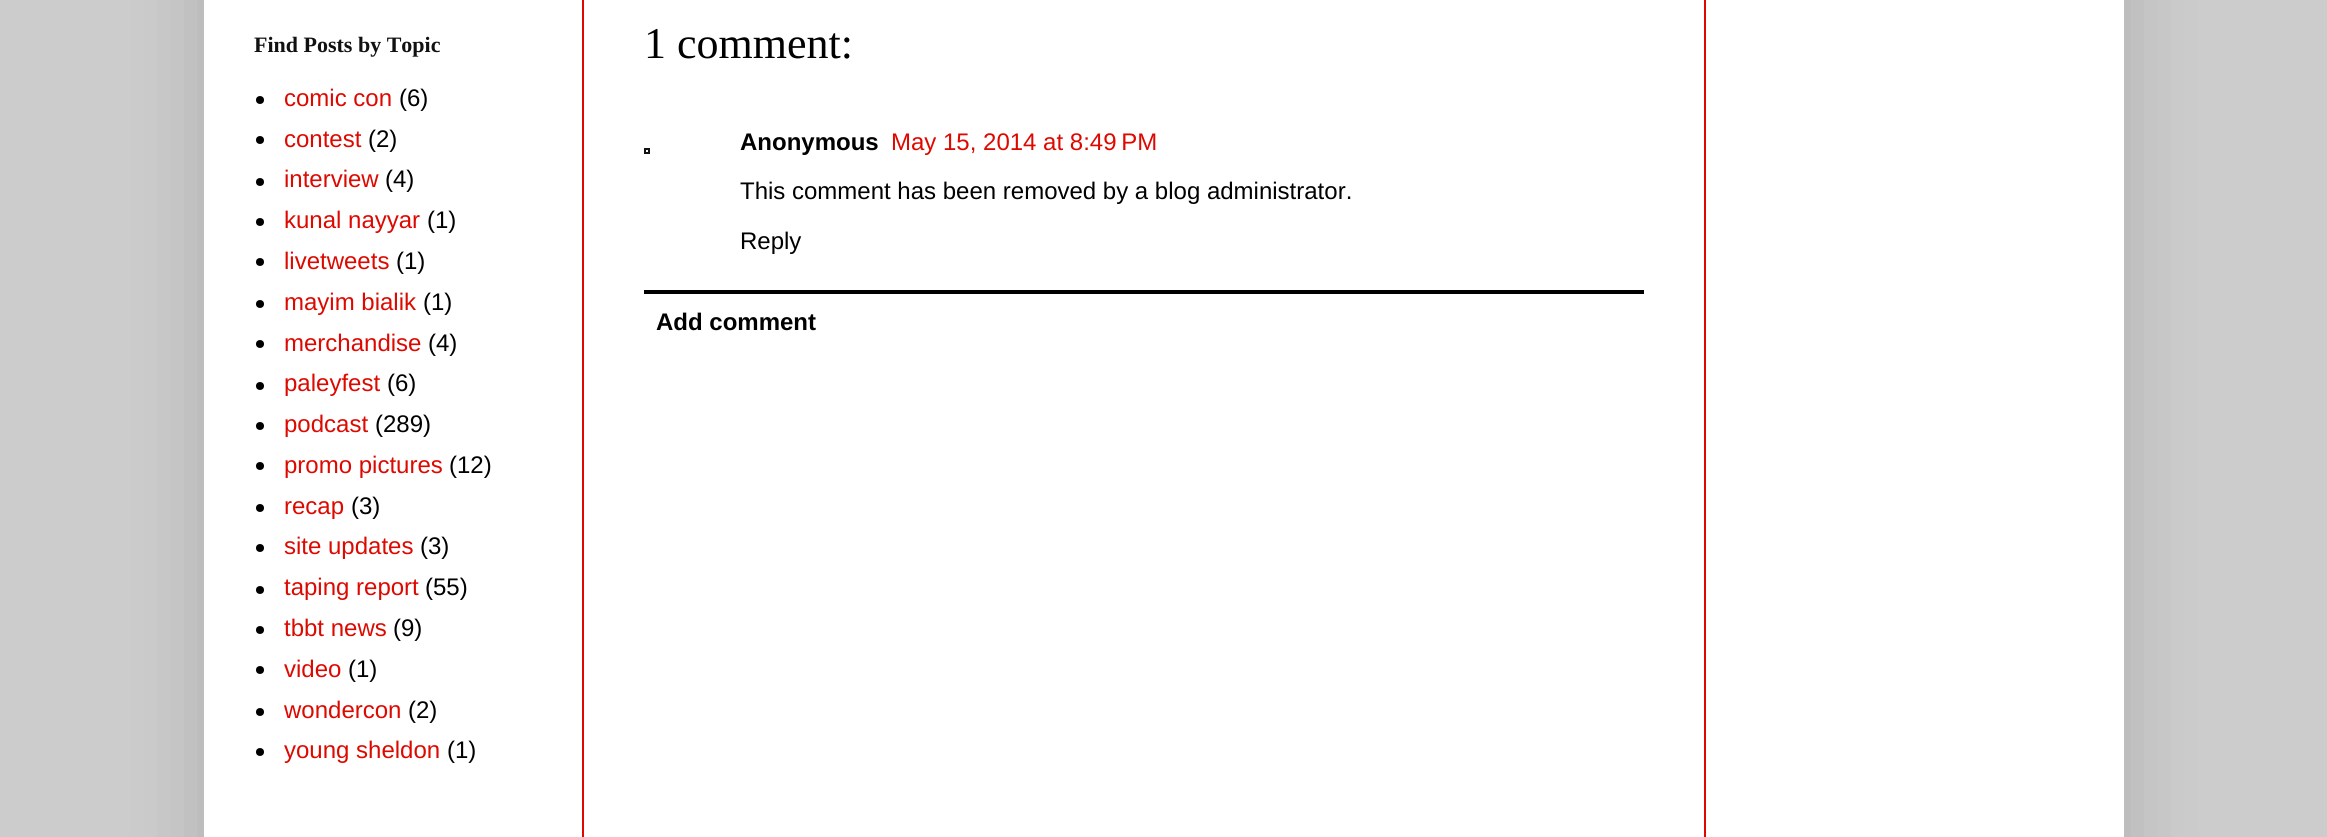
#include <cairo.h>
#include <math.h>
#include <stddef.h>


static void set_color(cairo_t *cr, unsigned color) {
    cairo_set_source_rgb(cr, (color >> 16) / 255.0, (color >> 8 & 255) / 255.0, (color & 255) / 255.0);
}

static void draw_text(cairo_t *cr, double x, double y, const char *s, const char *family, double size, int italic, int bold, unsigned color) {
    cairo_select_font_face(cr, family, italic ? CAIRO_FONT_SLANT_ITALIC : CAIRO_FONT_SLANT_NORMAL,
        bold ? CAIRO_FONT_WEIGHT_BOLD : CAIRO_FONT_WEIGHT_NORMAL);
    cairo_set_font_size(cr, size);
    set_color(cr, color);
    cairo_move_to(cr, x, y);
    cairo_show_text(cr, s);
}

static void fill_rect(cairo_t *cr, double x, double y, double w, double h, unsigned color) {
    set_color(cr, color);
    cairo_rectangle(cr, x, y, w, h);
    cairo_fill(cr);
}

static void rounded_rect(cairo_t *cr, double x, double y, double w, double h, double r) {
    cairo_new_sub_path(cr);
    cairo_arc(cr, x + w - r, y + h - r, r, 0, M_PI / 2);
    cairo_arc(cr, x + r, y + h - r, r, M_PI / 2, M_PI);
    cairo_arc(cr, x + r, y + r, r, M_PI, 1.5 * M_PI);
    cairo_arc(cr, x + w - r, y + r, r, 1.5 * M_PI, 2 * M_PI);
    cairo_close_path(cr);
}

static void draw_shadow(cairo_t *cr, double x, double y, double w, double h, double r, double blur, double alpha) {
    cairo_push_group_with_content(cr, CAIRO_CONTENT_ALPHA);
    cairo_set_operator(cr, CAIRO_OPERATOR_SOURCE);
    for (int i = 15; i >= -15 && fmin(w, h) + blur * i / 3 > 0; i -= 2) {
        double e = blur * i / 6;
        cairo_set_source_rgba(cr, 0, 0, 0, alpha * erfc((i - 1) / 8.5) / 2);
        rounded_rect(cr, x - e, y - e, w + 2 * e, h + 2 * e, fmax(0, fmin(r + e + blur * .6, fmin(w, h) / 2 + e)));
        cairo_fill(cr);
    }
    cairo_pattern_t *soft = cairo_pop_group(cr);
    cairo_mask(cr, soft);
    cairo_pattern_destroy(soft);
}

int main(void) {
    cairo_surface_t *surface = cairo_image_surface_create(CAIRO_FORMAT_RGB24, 2327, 837);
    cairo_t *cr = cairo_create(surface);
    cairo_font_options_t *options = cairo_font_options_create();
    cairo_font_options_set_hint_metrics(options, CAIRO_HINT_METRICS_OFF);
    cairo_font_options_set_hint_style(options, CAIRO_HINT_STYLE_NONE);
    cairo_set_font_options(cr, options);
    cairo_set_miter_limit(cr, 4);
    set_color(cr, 0xCCCCCC);
    cairo_paint(cr);
    set_color(cr, 0x000000);
    draw_shadow(cr, 204, -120, 1920, 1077, 0, 40, 0.15);
    fill_rect(cr, 204, 0, 1920, 837, 0xFFFFFF);
    fill_rect(cr, 582, 0, 2, 837, 0xDD0900);
    fill_rect(cr, 1704, 0, 2, 837, 0xDD0900);
    draw_text(cr, 254, 52, "Find Posts by Topic", "Liberation Serif", 22, 0, 1, 0x111111);
    set_color(cr, 0x000000);
    cairo_new_path(cr);
    cairo_arc(cr, 260, 100, 4, 0, 2 * M_PI);
    cairo_fill(cr);
    draw_text(cr, 284, 106, "comic con", "Liberation Sans", 24, 0, 0, 0xDD0900);
    draw_text(cr, 399, 106, "(6)", "Liberation Sans", 24, 0, 0, 0x000000);
    cairo_new_path(cr);
    cairo_arc(cr, 260, 140, 4, 0, 2 * M_PI);
    cairo_fill(cr);
    draw_text(cr, 284, 147, "contest", "Liberation Sans", 24, 0, 0, 0xDD0900);
    draw_text(cr, 368, 147, "(2)", "Liberation Sans", 24, 0, 0, 0x000000);
    cairo_new_path(cr);
    cairo_arc(cr, 260, 182, 4, 0, 2 * M_PI);
    cairo_fill(cr);
    draw_text(cr, 284, 187, "interview", "Liberation Sans", 24, 0, 0, 0xDD0900);
    draw_text(cr, 385, 187, "(4)", "Liberation Sans", 24, 0, 0, 0x000000);
    cairo_new_path(cr);
    cairo_arc(cr, 260, 222, 4, 0, 2 * M_PI);
    cairo_fill(cr);
    draw_text(cr, 284, 228, "kunal nayyar", "Liberation Sans", 24, 0, 0, 0xDD0900);
    draw_text(cr, 427, 228, "(1)", "Liberation Sans", 24, 0, 0, 0x000000);
    cairo_new_path(cr);
    cairo_arc(cr, 260, 262, 4, 0, 2 * M_PI);
    cairo_fill(cr);
    draw_text(cr, 284, 269, "livetweets", "Liberation Sans", 24, 0, 0, 0xDD0900);
    draw_text(cr, 396, 269, "(1)", "Liberation Sans", 24, 0, 0, 0x000000);
    cairo_new_path(cr);
    cairo_arc(cr, 260, 304, 4, 0, 2 * M_PI);
    cairo_fill(cr);
    draw_text(cr, 284, 310, "mayim bialik", "Liberation Sans", 24, 0, 0, 0xDD0900);
    draw_text(cr, 423, 310, "(1)", "Liberation Sans", 24, 0, 0, 0x000000);
    cairo_new_path(cr);
    cairo_arc(cr, 260, 344, 4, 0, 2 * M_PI);
    cairo_fill(cr);
    draw_text(cr, 284, 351, "merchandise", "Liberation Sans", 24, 0, 0, 0xDD0900);
    draw_text(cr, 428, 351, "(4)", "Liberation Sans", 24, 0, 0, 0x000000);
    cairo_new_path(cr);
    cairo_arc(cr, 260, 386, 4, 0, 2 * M_PI);
    cairo_fill(cr);
    draw_text(cr, 284, 391, "paleyfest", "Liberation Sans", 24, 0, 0, 0xDD0900);
    draw_text(cr, 387, 391, "(6)", "Liberation Sans", 24, 0, 0, 0x000000);
    cairo_new_path(cr);
    cairo_arc(cr, 260, 426, 4, 0, 2 * M_PI);
    cairo_fill(cr);
    draw_text(cr, 284, 432, "podcast", "Liberation Sans", 24, 0, 0, 0xDD0900);
    draw_text(cr, 375, 432, "(289)", "Liberation Sans", 24, 0, 0, 0x000000);
    cairo_new_path(cr);
    cairo_arc(cr, 260, 466, 4, 0, 2 * M_PI);
    cairo_fill(cr);
    draw_text(cr, 284, 473, "promo pictures", "Liberation Sans", 24, 0, 0, 0xDD0900);
    draw_text(cr, 449, 473, "(12)", "Liberation Sans", 24, 0, 0, 0x000000);
    cairo_new_path(cr);
    cairo_arc(cr, 260, 508, 4, 0, 2 * M_PI);
    cairo_fill(cr);
    draw_text(cr, 284, 514, "recap", "Liberation Sans", 24, 0, 0, 0xDD0900);
    draw_text(cr, 351, 514, "(3)", "Liberation Sans", 24, 0, 0, 0x000000);
    cairo_new_path(cr);
    cairo_arc(cr, 260, 548, 4, 0, 2 * M_PI);
    cairo_fill(cr);
    draw_text(cr, 284, 554, "site updates", "Liberation Sans", 24, 0, 0, 0xDD0900);
    draw_text(cr, 420, 554, "(3)", "Liberation Sans", 24, 0, 0, 0x000000);
    cairo_new_path(cr);
    cairo_arc(cr, 260, 590, 4, 0, 2 * M_PI);
    cairo_fill(cr);
    draw_text(cr, 284, 595, "taping report", "Liberation Sans", 24, 0, 0, 0xDD0900);
    draw_text(cr, 425, 595, "(55)", "Liberation Sans", 24, 0, 0, 0x000000);
    cairo_new_path(cr);
    cairo_arc(cr, 260, 630, 4, 0, 2 * M_PI);
    cairo_fill(cr);
    draw_text(cr, 284, 636, "tbbt news", "Liberation Sans", 24, 0, 0, 0xDD0900);
    draw_text(cr, 393, 636, "(9)", "Liberation Sans", 24, 0, 0, 0x000000);
    cairo_new_path(cr);
    cairo_arc(cr, 260, 670, 4, 0, 2 * M_PI);
    cairo_fill(cr);
    draw_text(cr, 284, 677, "video", "Liberation Sans", 24, 0, 0, 0xDD0900);
    draw_text(cr, 348, 677, "(1)", "Liberation Sans", 24, 0, 0, 0x000000);
    cairo_new_path(cr);
    cairo_arc(cr, 260, 712, 4, 0, 2 * M_PI);
    cairo_fill(cr);
    draw_text(cr, 284, 718, "wondercon", "Liberation Sans", 24, 0, 0, 0xDD0900);
    draw_text(cr, 408, 718, "(2)", "Liberation Sans", 24, 0, 0, 0x000000);
    cairo_new_path(cr);
    cairo_arc(cr, 260, 752, 4, 0, 2 * M_PI);
    cairo_fill(cr);
    draw_text(cr, 284, 758, "young sheldon", "Liberation Sans", 24, 0, 0, 0xDD0900);
    draw_text(cr, 447, 758, "(1)", "Liberation Sans", 24, 0, 0, 0x000000);
    draw_text(cr, 644, 58, "1 comment:", "Liberation Serif", 44, 0, 0, 0x000000);
    cairo_rectangle(cr, 645, 149, 4, 4);
    set_color(cr, 0x111111);
    cairo_stroke(cr);
    draw_text(cr, 740, 150, "Anonymous", "Liberation Sans", 24, 0, 1, 0x000000);
    draw_text(cr, 891, 150, "May 15, 2014 at 8:49 PM", "Liberation Sans", 24, 0, 0, 0xDD0900);
    draw_text(cr, 740, 199, "This comment has been removed by a blog administrator.", "Liberation Sans", 24, 0, 0, 0x000000);
    draw_text(cr, 740, 249, "Reply", "Liberation Sans", 24, 0, 0, 0x000000);
    fill_rect(cr, 644, 290, 1000, 4, 0x000000);
    draw_text(cr, 656, 330, "Add comment", "Liberation Sans", 24, 0, 1, 0x000000);
    cairo_surface_write_to_png(surface, "output.png");
    cairo_font_options_destroy(options);
    cairo_destroy(cr);
    cairo_surface_destroy(surface);
    return 0;
}
